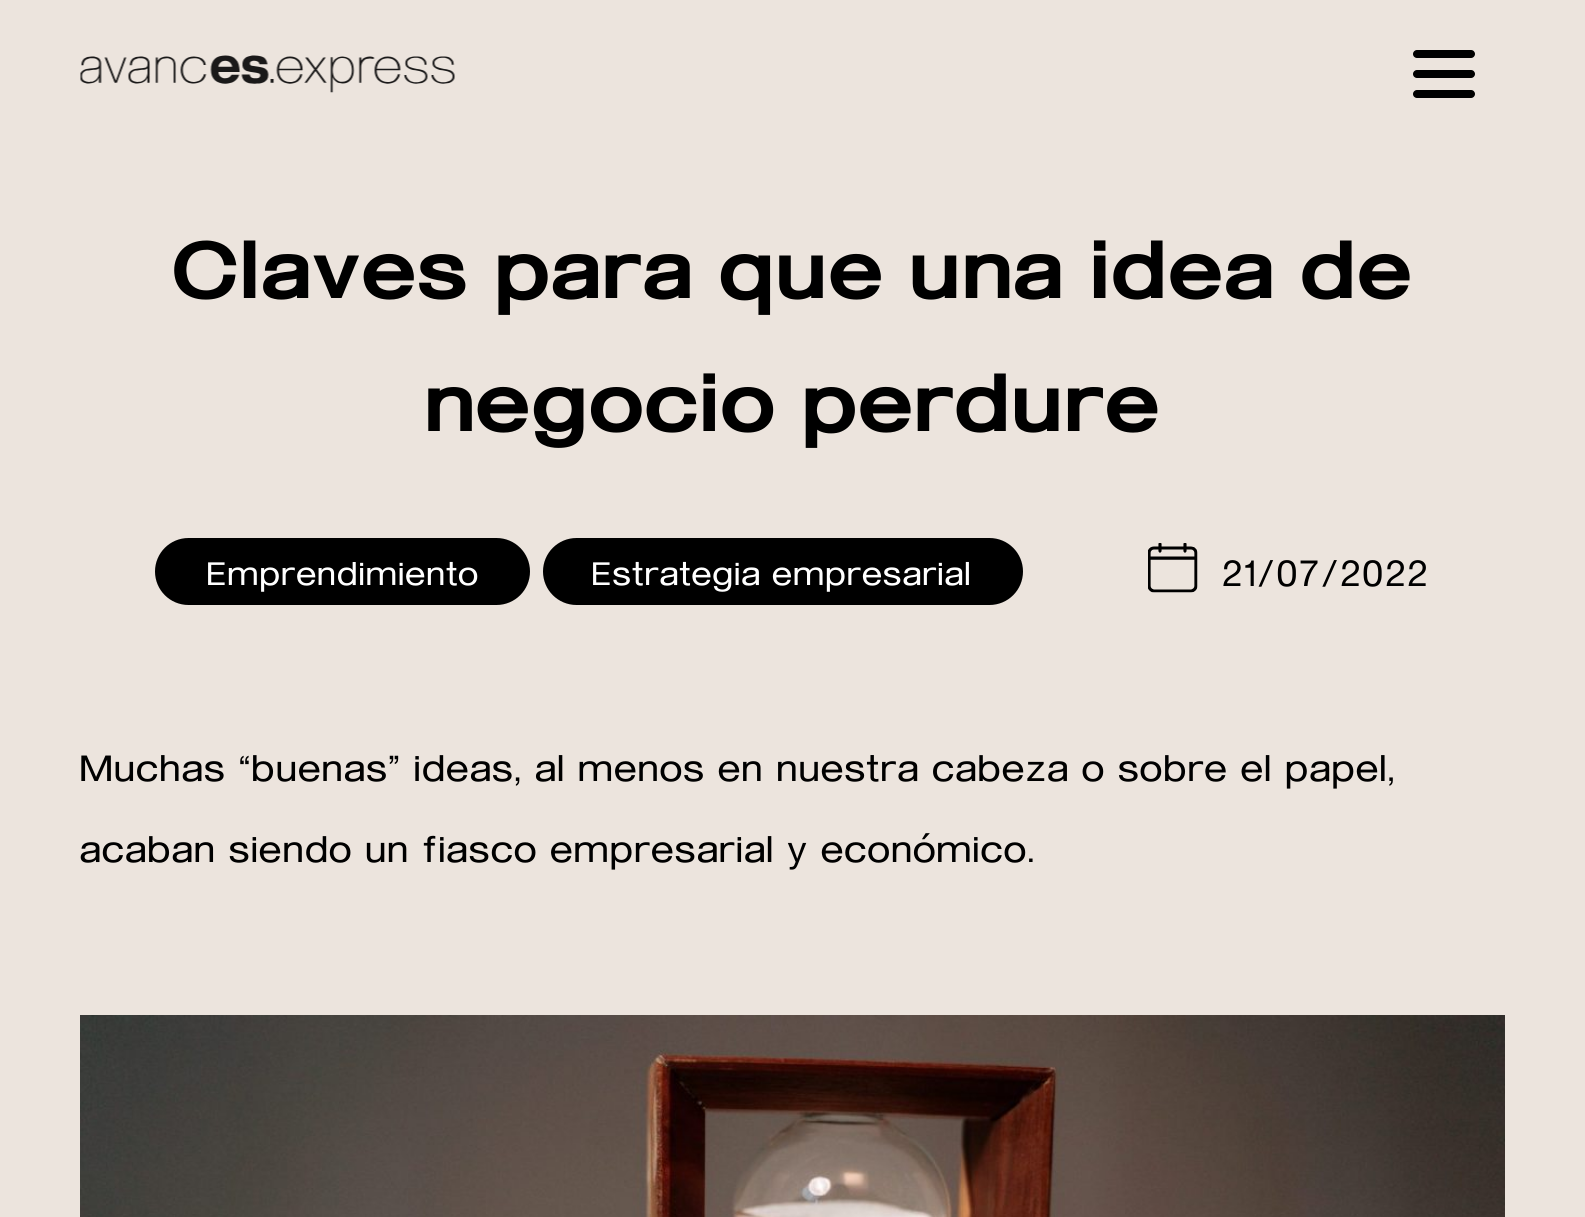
#include <cairo.h>
#include <math.h>
#include <stddef.h>


static void set_color(cairo_t *cr, unsigned color) {
    cairo_set_source_rgb(cr, (color >> 16) / 255.0, (color >> 8 & 255) / 255.0, (color & 255) / 255.0);
}

static void draw_text(cairo_t *cr, double x, double y, const char *s, const char *family, double size, int italic, int bold, unsigned color) {
    cairo_select_font_face(cr, family, italic ? CAIRO_FONT_SLANT_ITALIC : CAIRO_FONT_SLANT_NORMAL,
        bold ? CAIRO_FONT_WEIGHT_BOLD : CAIRO_FONT_WEIGHT_NORMAL);
    cairo_set_font_size(cr, size);
    set_color(cr, color);
    cairo_move_to(cr, x, y);
    cairo_show_text(cr, s);
}

static void rounded_rect(cairo_t *cr, double x, double y, double w, double h, double r) {
    cairo_new_sub_path(cr);
    cairo_arc(cr, x + w - r, y + h - r, r, 0, M_PI / 2);
    cairo_arc(cr, x + r, y + h - r, r, M_PI / 2, M_PI);
    cairo_arc(cr, x + r, y + r, r, M_PI, 1.5 * M_PI);
    cairo_arc(cr, x + w - r, y + r, r, 1.5 * M_PI, 2 * M_PI);
    cairo_close_path(cr);
}

static void draw_image(cairo_t *cr, const char *path, double x, double y, double w, double h) {
    cairo_surface_t *image = cairo_image_surface_create_from_png(path);
    cairo_save(cr);
    cairo_set_source_surface(cr, image, x, y);
    cairo_rectangle(cr, x, y, w, h);
    cairo_fill(cr);
    cairo_restore(cr);
    cairo_surface_destroy(image);
}

int main(void) {
    cairo_surface_t *surface = cairo_image_surface_create(CAIRO_FORMAT_RGB24, 1585, 1217);
    cairo_t *cr = cairo_create(surface);
    cairo_font_options_t *options = cairo_font_options_create();
    cairo_font_options_set_hint_metrics(options, CAIRO_HINT_METRICS_OFF);
    cairo_font_options_set_hint_style(options, CAIRO_HINT_STYLE_NONE);
    cairo_set_font_options(cr, options);
    cairo_set_miter_limit(cr, 4);
    set_color(cr, 0xECE4DD);
    cairo_paint(cr);
    draw_image(cr, "assets/img1.png", 80, 55, 375, 38);
    set_color(cr, 0x000000);
    rounded_rect(cr, 1413, 70, 62, 8, 4);
    cairo_fill(cr);
    rounded_rect(cr, 1413, 50, 62, 8, 4);
    cairo_fill(cr);
    rounded_rect(cr, 1413, 90, 62, 8, 4);
    cairo_fill(cr);
    draw_text(cr, 172, 298, "Claves para que una idea de", "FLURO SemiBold", 100, 0, 0, 0x000000);
    draw_text(cr, 424, 431, "negocio perdure", "FLURO SemiBold", 100, 0, 0, 0x000000);
    rounded_rect(cr, 155, 538, 375, 67, 33.5);
    cairo_fill(cr);
    draw_text(cr, 206, 585, "Emprendimiento", "FLURO", 40, 0, 0, 0xFFFFFF);
    set_color(cr, 0x000000);
    rounded_rect(cr, 543, 538, 480, 67, 33.5);
    cairo_fill(cr);
    draw_text(cr, 591, 585, "Estrategia empresarial", "FLURO", 40, 0, 0, 0xFFFFFF);
    draw_image(cr, "assets/img2.png", 1148, 543, 50, 50);
    draw_text(cr, 1221, 586, "21/07/2022", "FLURO", 45, 0, 0, 0x000000);
    draw_text(cr, 79, 781, "Muchas “buenas” ideas, al menos en nuestra cabeza o sobre el papel,", "FLURO", 45, 0, 0, 0x000000);
    draw_text(cr, 79, 862, "acaban siendo un fiasco empresarial y económico.", "FLURO", 45, 0, 0, 0x000000);
    draw_image(cr, "assets/img3.png", 80, 1015, 1425, 202);
    cairo_surface_write_to_png(surface, "output.png");
    cairo_font_options_destroy(options);
    cairo_destroy(cr);
    cairo_surface_destroy(surface);
    return 0;
}
